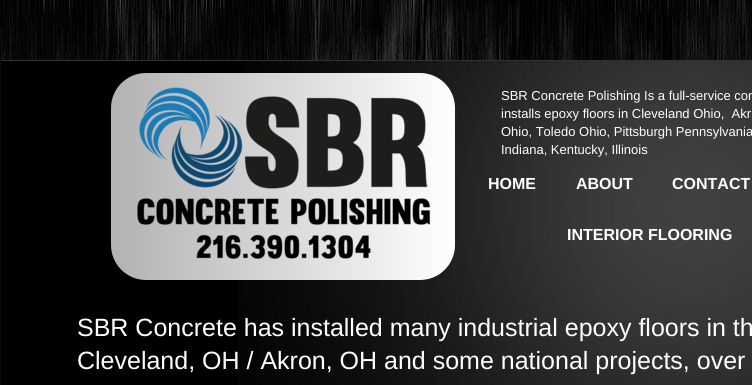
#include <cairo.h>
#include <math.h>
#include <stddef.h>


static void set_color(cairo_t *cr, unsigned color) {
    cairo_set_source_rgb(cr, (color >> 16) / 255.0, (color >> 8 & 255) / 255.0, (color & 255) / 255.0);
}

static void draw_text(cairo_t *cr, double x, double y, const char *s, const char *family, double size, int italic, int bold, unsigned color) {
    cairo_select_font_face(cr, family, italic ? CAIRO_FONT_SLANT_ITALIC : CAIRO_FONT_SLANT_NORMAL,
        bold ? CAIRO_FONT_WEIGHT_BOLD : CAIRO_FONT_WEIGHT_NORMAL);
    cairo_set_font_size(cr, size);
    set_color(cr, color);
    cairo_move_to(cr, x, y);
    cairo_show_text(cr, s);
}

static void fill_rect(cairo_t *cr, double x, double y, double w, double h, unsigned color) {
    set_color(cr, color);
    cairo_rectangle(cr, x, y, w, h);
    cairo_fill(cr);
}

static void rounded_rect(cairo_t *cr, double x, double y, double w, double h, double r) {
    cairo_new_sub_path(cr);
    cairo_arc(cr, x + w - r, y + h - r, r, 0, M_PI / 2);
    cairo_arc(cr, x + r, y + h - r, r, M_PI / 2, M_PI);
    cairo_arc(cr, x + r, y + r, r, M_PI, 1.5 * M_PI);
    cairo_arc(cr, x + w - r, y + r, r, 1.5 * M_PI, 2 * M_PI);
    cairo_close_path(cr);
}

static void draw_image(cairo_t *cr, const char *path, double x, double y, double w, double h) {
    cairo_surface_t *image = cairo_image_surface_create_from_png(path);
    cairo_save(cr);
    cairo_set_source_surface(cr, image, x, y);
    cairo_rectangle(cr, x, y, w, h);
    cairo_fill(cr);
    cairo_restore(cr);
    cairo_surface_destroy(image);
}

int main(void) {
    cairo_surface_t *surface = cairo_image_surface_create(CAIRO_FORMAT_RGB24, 752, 385);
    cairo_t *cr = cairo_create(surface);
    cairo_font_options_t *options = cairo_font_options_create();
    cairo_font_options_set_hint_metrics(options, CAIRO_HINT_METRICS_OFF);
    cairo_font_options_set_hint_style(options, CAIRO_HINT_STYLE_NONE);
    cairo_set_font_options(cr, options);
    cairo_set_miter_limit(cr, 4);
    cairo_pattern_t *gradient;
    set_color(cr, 0xFFFFFF);
    cairo_paint(cr);
    draw_image(cr, "assets/img1.png", 0, 0, 752, 60);
    fill_rect(cr, 1, 61, 237, 324, 0x000000);
    fill_rect(cr, 0, 60, 752, 1, 0x313131);
    fill_rect(cr, 0, 60, 1, 325, 0x0C0C0C);
    draw_image(cr, "assets/img2.png", 238, 61, 514, 324);
    gradient = cairo_pattern_create_linear(111, 177, 455, 177);
    cairo_pattern_add_color_stop_rgba(gradient, 0, 0.698, 0.698, 0.698, 1);
    cairo_pattern_add_color_stop_rgba(gradient, 1, 1, 1, 1, 1);
    cairo_set_source(cr, gradient);
    cairo_pattern_destroy(gradient);
    rounded_rect(cr, 111, 73, 344, 207, 35);
    cairo_fill(cr);
    draw_image(cr, "assets/img3.png", 137, 87, 294, 172);
    draw_text(cr, 501, 100, "SBR Concrete Polishing Is a full-service con", "Liberation Sans", 13, 0, 0, 0xFFFFFF);
    draw_text(cr, 501, 118, "installs epoxy floors in Cleveland Ohio,  Akr", "Liberation Sans", 13, 0, 0, 0xFFFFFF);
    draw_text(cr, 501, 136, "Ohio, Toledo Ohio, Pittsburgh Pennsylvania", "Liberation Sans", 13, 0, 0, 0xFFFFFF);
    draw_text(cr, 501, 154, "Indiana, Kentucky, Illinois", "Liberation Sans", 13, 0, 0, 0xFFFFFF);
    draw_text(cr, 488, 189, "HOME", "Liberation Sans", 16, 0, 1, 0xFFFFFF);
    draw_text(cr, 576, 189, "ABOUT", "Liberation Sans", 16, 0, 1, 0xFFFFFF);
    draw_text(cr, 672, 189, "CONTACT", "Liberation Sans", 16, 0, 1, 0xFFFFFF);
    draw_text(cr, 567, 240, "INTERIOR FLOORING", "Liberation Sans", 16, 0, 1, 0xFFFFFF);
    draw_text(cr, 77, 336, "SBR Concrete has installed many industrial epoxy floors in th", "Liberation Sans", 25, 0, 0, 0xFFFFFF);
    draw_text(cr, 77, 369, "Cleveland, OH / Akron, OH and some national projects, over", "Liberation Sans", 25, 0, 0, 0xFFFFFF);
    cairo_surface_write_to_png(surface, "output.png");
    cairo_font_options_destroy(options);
    cairo_destroy(cr);
    cairo_surface_destroy(surface);
    return 0;
}
